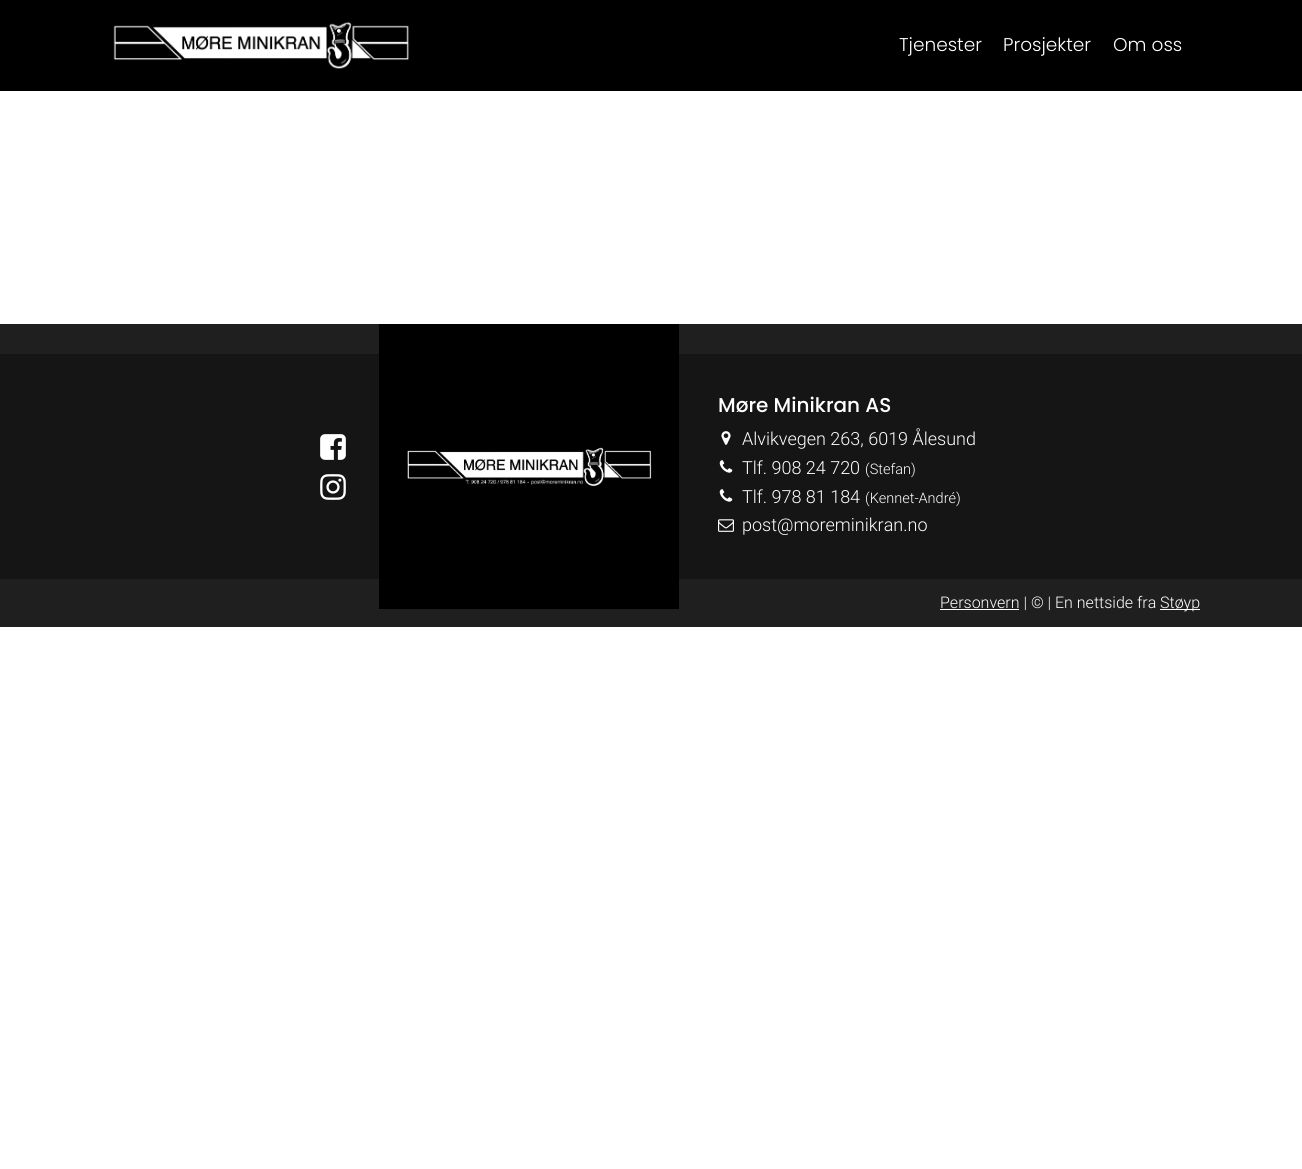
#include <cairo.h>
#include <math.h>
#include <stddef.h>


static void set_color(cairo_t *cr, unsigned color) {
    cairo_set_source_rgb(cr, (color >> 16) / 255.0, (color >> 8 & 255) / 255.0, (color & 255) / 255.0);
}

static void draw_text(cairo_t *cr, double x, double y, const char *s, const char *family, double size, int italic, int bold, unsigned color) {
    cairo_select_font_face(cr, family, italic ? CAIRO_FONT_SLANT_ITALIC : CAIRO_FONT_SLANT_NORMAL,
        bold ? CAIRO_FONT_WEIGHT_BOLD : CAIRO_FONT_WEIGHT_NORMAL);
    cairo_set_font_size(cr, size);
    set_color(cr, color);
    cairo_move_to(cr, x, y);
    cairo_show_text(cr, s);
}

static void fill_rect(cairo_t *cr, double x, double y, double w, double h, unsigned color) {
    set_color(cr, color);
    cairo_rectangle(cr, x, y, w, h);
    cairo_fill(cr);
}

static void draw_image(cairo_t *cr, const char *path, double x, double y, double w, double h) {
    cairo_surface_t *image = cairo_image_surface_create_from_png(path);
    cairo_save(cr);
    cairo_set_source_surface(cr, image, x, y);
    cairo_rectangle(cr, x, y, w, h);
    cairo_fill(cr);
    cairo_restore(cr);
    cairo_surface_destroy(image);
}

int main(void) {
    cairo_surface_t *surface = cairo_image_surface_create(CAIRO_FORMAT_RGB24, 1302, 1169);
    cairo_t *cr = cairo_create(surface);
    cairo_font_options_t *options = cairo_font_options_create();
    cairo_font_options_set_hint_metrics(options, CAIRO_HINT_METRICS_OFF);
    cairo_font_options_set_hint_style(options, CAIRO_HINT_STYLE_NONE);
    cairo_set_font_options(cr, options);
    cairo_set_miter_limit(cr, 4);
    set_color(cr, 0xFFFFFF);
    cairo_paint(cr);
    fill_rect(cr, 0, 0, 1302, 91, 0x000000);
    draw_image(cr, "assets/img1.png", 113, 21, 297, 48);
    draw_text(cr, 899, 51, "Tjenester", "Poppins Light", 18.5, 0, 0, 0xFFFFFF);
    draw_text(cr, 1003, 51, "Prosjekter", "Poppins Light", 18.5, 0, 0, 0xFFFFFF);
    draw_text(cr, 1113, 51, "Om oss", "Poppins Light", 18.5, 0, 0, 0xFFFFFF);
    fill_rect(cr, 0, 324, 1302, 303, 0x201F1F);
    fill_rect(cr, 0, 354, 1302, 225, 0x151515);
    draw_image(cr, "assets/img2.png", 320, 434, 26, 26);
    draw_image(cr, "assets/img3.png", 320, 474, 26, 26);
    fill_rect(cr, 379, 324, 300, 285, 0x000000);
    draw_image(cr, "assets/img4.png", 407, 447, 245, 40);
    draw_text(cr, 718, 412, "Møre Minikran AS", "Poppins Medium", 20, 0, 0, 0xFFFFFF);
    draw_image(cr, "assets/img5.png", 721, 431, 10, 14);
    draw_text(cr, 742, 445, "Alvikvegen 263, 6019 Ålesund", "Roboto Light", 18, 0, 0, 0xFFFFFF);
    draw_image(cr, "assets/img6.png", 719, 460, 14, 13);
    draw_text(cr, 742, 474, "Tlf. 908 24 720", "Roboto Light", 18, 0, 0, 0xFFFFFF);
    draw_text(cr, 865, 474, "(Stefan)", "Roboto Light", 14.5, 0, 0, 0xFFFFFF);
    draw_image(cr, "assets/img6.png", 719, 489, 14, 13);
    draw_text(cr, 742, 503, "Tlf. 978 81 184", "Roboto Light", 18, 0, 0, 0xFFFFFF);
    draw_text(cr, 865, 503, "(Kennet-André)", "Roboto Light", 14.5, 0, 0, 0xFFFFFF);
    draw_image(cr, "assets/img7.png", 718, 519, 16, 13);
    draw_text(cr, 742, 531, "post@moreminikran.no", "Roboto Light", 18, 0, 0, 0xFFFFFF);
    fill_rect(cr, 940, 609, 79, 1, 0xFFFFFF);
    draw_text(cr, 940, 608, "Personvern | © | En nettside fra", "Roboto Light", 16, 0, 0, 0xFFFFFF);
    fill_rect(cr, 1160, 609, 40, 1, 0xFFFFFF);
    draw_text(cr, 1160, 608, "Støyp", "Roboto Light", 16, 0, 0, 0xFFFFFF);
    cairo_surface_write_to_png(surface, "output.png");
    cairo_font_options_destroy(options);
    cairo_destroy(cr);
    cairo_surface_destroy(surface);
    return 0;
}
